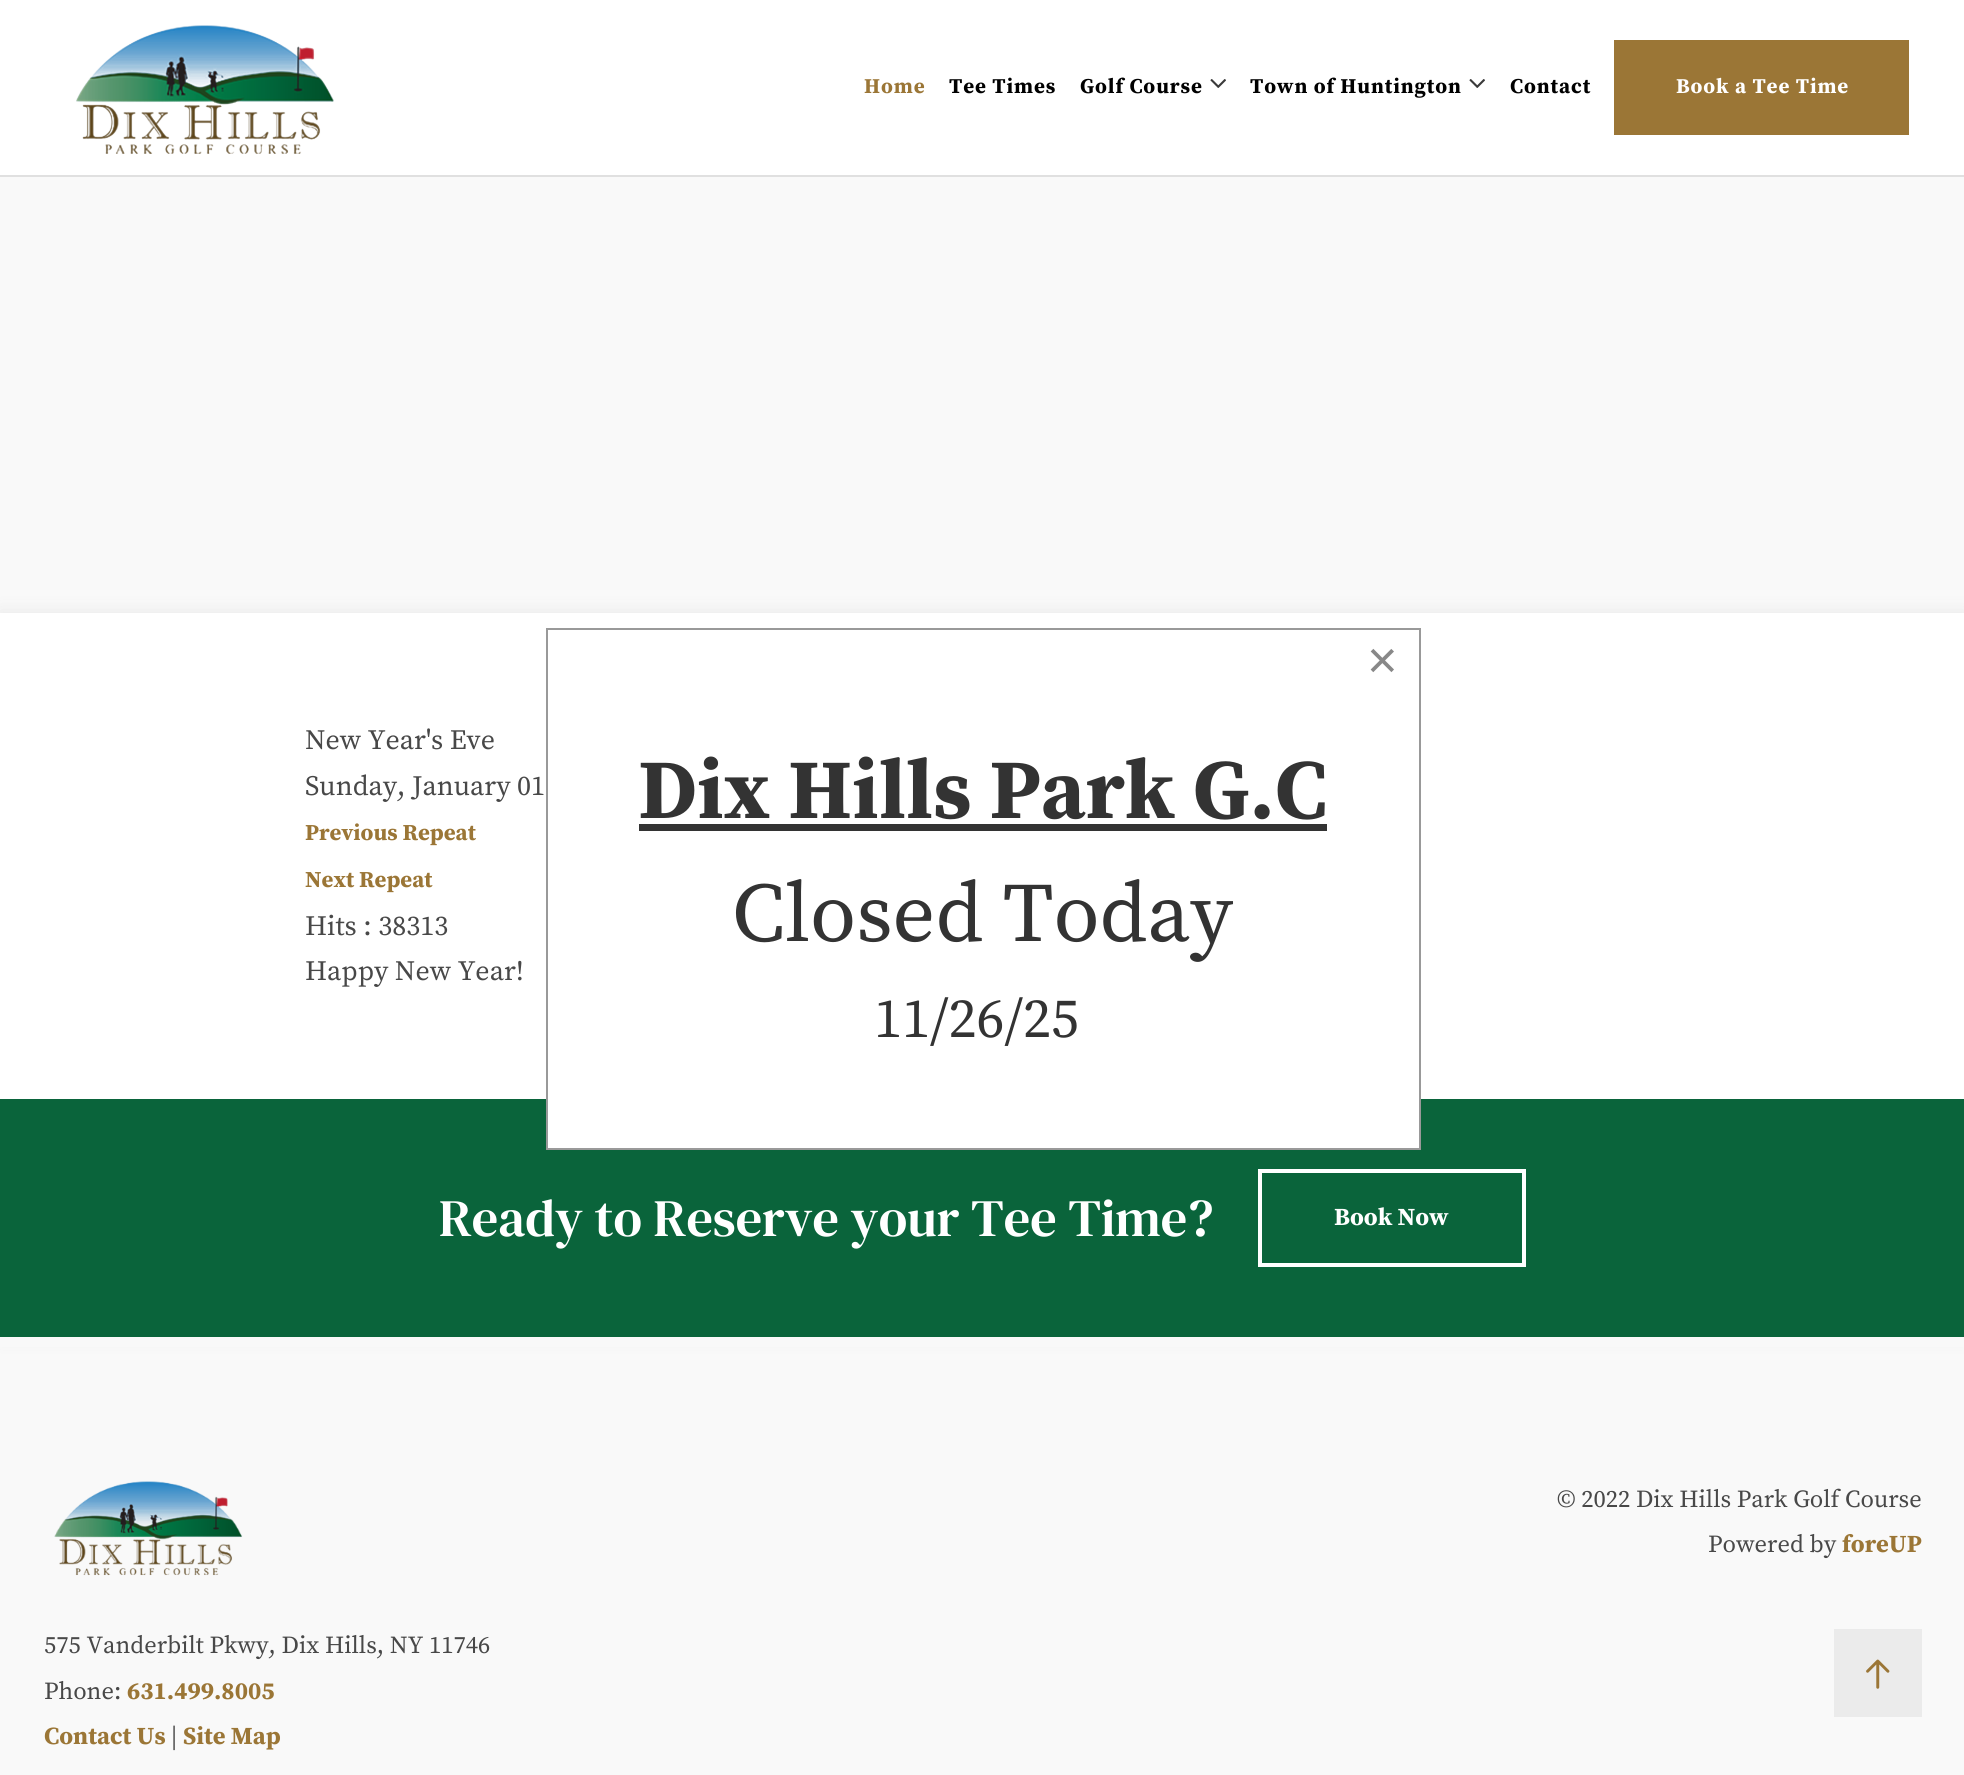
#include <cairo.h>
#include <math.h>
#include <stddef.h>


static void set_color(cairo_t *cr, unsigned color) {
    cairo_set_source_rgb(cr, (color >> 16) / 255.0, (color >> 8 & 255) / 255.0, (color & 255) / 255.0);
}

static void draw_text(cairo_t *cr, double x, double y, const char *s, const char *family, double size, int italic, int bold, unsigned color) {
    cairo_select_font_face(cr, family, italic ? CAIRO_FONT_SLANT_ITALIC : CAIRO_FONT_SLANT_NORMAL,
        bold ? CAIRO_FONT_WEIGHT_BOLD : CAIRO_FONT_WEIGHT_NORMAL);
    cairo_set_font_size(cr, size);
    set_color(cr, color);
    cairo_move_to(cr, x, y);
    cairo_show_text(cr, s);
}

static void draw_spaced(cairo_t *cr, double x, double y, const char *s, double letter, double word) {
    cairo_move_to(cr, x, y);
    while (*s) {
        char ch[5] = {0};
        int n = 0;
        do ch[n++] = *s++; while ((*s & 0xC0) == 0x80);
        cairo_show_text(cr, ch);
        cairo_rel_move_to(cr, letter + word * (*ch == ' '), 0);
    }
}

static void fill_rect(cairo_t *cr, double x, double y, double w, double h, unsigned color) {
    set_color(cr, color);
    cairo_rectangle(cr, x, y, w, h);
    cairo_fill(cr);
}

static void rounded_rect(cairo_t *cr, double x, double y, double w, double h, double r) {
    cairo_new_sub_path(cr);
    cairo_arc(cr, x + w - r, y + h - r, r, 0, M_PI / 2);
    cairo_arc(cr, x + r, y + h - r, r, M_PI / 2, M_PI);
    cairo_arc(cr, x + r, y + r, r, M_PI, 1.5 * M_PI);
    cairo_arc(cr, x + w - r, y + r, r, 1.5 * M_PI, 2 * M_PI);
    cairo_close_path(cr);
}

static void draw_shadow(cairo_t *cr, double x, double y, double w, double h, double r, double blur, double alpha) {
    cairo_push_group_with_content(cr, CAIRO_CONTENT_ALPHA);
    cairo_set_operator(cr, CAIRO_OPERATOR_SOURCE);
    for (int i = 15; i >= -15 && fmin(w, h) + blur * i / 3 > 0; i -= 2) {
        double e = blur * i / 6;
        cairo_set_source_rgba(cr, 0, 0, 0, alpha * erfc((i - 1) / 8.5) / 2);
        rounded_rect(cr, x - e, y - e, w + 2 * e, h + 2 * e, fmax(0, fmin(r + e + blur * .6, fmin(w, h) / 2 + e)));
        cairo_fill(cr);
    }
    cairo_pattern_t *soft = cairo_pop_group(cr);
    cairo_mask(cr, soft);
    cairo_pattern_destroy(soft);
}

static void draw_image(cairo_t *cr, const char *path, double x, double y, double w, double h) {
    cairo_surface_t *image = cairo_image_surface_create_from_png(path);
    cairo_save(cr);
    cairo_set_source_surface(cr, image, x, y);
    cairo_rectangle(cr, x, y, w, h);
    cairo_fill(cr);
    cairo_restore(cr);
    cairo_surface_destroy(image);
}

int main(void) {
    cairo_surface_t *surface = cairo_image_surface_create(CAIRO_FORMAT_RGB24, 1964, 1775);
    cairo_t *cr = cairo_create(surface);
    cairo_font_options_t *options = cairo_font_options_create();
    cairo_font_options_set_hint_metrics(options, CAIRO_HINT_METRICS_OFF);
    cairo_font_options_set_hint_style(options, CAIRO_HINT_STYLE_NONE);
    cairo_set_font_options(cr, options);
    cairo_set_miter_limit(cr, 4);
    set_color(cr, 0xF9F9F9);
    cairo_paint(cr);
    fill_rect(cr, 0, 175, 1964, 2, 0xE0E0E0);
    fill_rect(cr, 0, 0, 1964, 175, 0xFFFFFF);
    draw_image(cr, "assets/img1.png", 76, 25, 258, 129);
    cairo_select_font_face(cr, "Source Serif Pro", CAIRO_FONT_SLANT_NORMAL, CAIRO_FONT_WEIGHT_BOLD);
    cairo_set_font_size(cr, 21);
    set_color(cr, 0x9B7636);
    draw_spaced(cr, 864, 93, "Home", 0.9, 0);
    set_color(cr, 0x000000);
    draw_spaced(cr, 949, 93, "Tee Times", 0.9, 0);
    draw_spaced(cr, 1080, 93, "Golf Course", 0.9, 0);
    draw_image(cr, "assets/img2.png", 1210, 79, 16, 9);
    draw_spaced(cr, 1250, 93, "Town of Huntington", 0.9, 0);
    draw_image(cr, "assets/img2.png", 1469, 79, 16, 9);
    draw_spaced(cr, 1510, 93, "Contact", 0.9, 0);
    fill_rect(cr, 1614, 40, 295, 95, 0x9B7636);
    set_color(cr, 0xFFFFFF);
    draw_spaced(cr, 1676, 93, "Book a Tee Time", 0.9, 0);
    set_color(cr, 0xE7E7E7);
    draw_shadow(cr, 0, 613, 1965, 724, 0, 9, 1);
    fill_rect(cr, 0, 613, 1964, 486, 0xFFFFFF);
    draw_text(cr, 305, 749, "New Year's Eve", "Source Serif Pro", 28, 0, 0, 0x484848);
    draw_text(cr, 305, 795, "Sunday, January 01", "Source Serif Pro", 28, 0, 0, 0x484848);
    draw_text(cr, 305, 840, "Previous Repeat", "Source Serif Pro", 22.75, 0, 1, 0x9B7636);
    draw_text(cr, 305, 887, "Next Repeat", "Source Serif Pro", 22.75, 0, 1, 0x9B7636);
    draw_text(cr, 305, 935, "Hits : 38313", "Source Serif Pro", 28, 0, 0, 0x484848);
    draw_text(cr, 305, 980, "Happy New Year!", "Source Serif Pro", 28, 0, 0, 0x484848);
    fill_rect(cr, 0, 1099, 1964, 238, 0x0A643B);
    draw_text(cr, 439, 1236, "Ready to Reserve your Tee Time?", "DM Serif Text", 52.5, 0, 0, 0xFFFFFF);
    cairo_rectangle(cr, 1260, 1171, 264, 94);
    cairo_set_line_width(cr, 4);
    cairo_stroke(cr);
    draw_text(cr, 1334, 1225, "Book Now", "Source Serif Pro", 24.5, 0, 1, 0xFFFFFF);
    fill_rect(cr, 0, 1337, 1964, 10, 0xF9F9F9);
    draw_text(cr, 1557, 1507, "© 2022 Dix Hills Park Golf Course", "Source Serif Pro", 24.5, 0, 0, 0x484848);
    draw_text(cr, 1708, 1552, "Powered by", "Source Serif Pro", 24.5, 0, 0, 0x484848);
    draw_text(cr, 1842, 1552, "foreUP", "Source Serif Pro", 24.5, 0, 1, 0x9B7636);
    fill_rect(cr, 1834, 1629, 88, 88, 0xEBEBEB);
    draw_image(cr, "assets/img3.png", 1866, 1659, 24, 30);
    draw_image(cr, "assets/img4.png", 54, 1481, 189, 95);
    draw_text(cr, 44, 1653, "575 Vanderbilt Pkwy, Dix Hills, NY 11746", "Source Serif Pro", 24.5, 0, 0, 0x484848);
    draw_text(cr, 44, 1699, "Phone:", "Source Serif Pro", 24.5, 0, 0, 0x484848);
    draw_text(cr, 127, 1699, "631.499.8005", "Source Serif Pro", 24.5, 0, 1, 0x9B7636);
    draw_text(cr, 44, 1744, "Contact Us", "Source Serif Pro", 24.5, 0, 1, 0x9B7636);
    draw_text(cr, 171, 1744, "|", "Source Serif Pro", 24.5, 0, 0, 0x484848);
    draw_text(cr, 183, 1744, "Site Map", "Source Serif Pro", 24.5, 0, 1, 0x9B7636);
    fill_rect(cr, 548, 1099, 871, 49, 0xFFFFFF);
    cairo_rectangle(cr, 547, 629, 873, 520);
    set_color(cr, 0x999999);
    cairo_set_line_width(cr, 2);
    cairo_stroke(cr);
    draw_text(cr, 1367, 678, "×", "Liberation Sans", 52.5, 0, 0, 0x888888);
    draw_text(cr, 638, 818, "Dix Hills Park G.C", "Source Serif Pro", 84, 0, 1, 0x333333);
    fill_rect(cr, 639, 824, 688, 7, 0x333333);
    draw_text(cr, 732, 941, "Closed Today", "Source Serif Pro", 84, 0, 0, 0x333333);
    draw_text(cr, 874, 1037, "11/26/25", "Source Serif Pro", 56, 0, 0, 0x333333);
    cairo_surface_write_to_png(surface, "output.png");
    cairo_font_options_destroy(options);
    cairo_destroy(cr);
    cairo_surface_destroy(surface);
    return 0;
}
